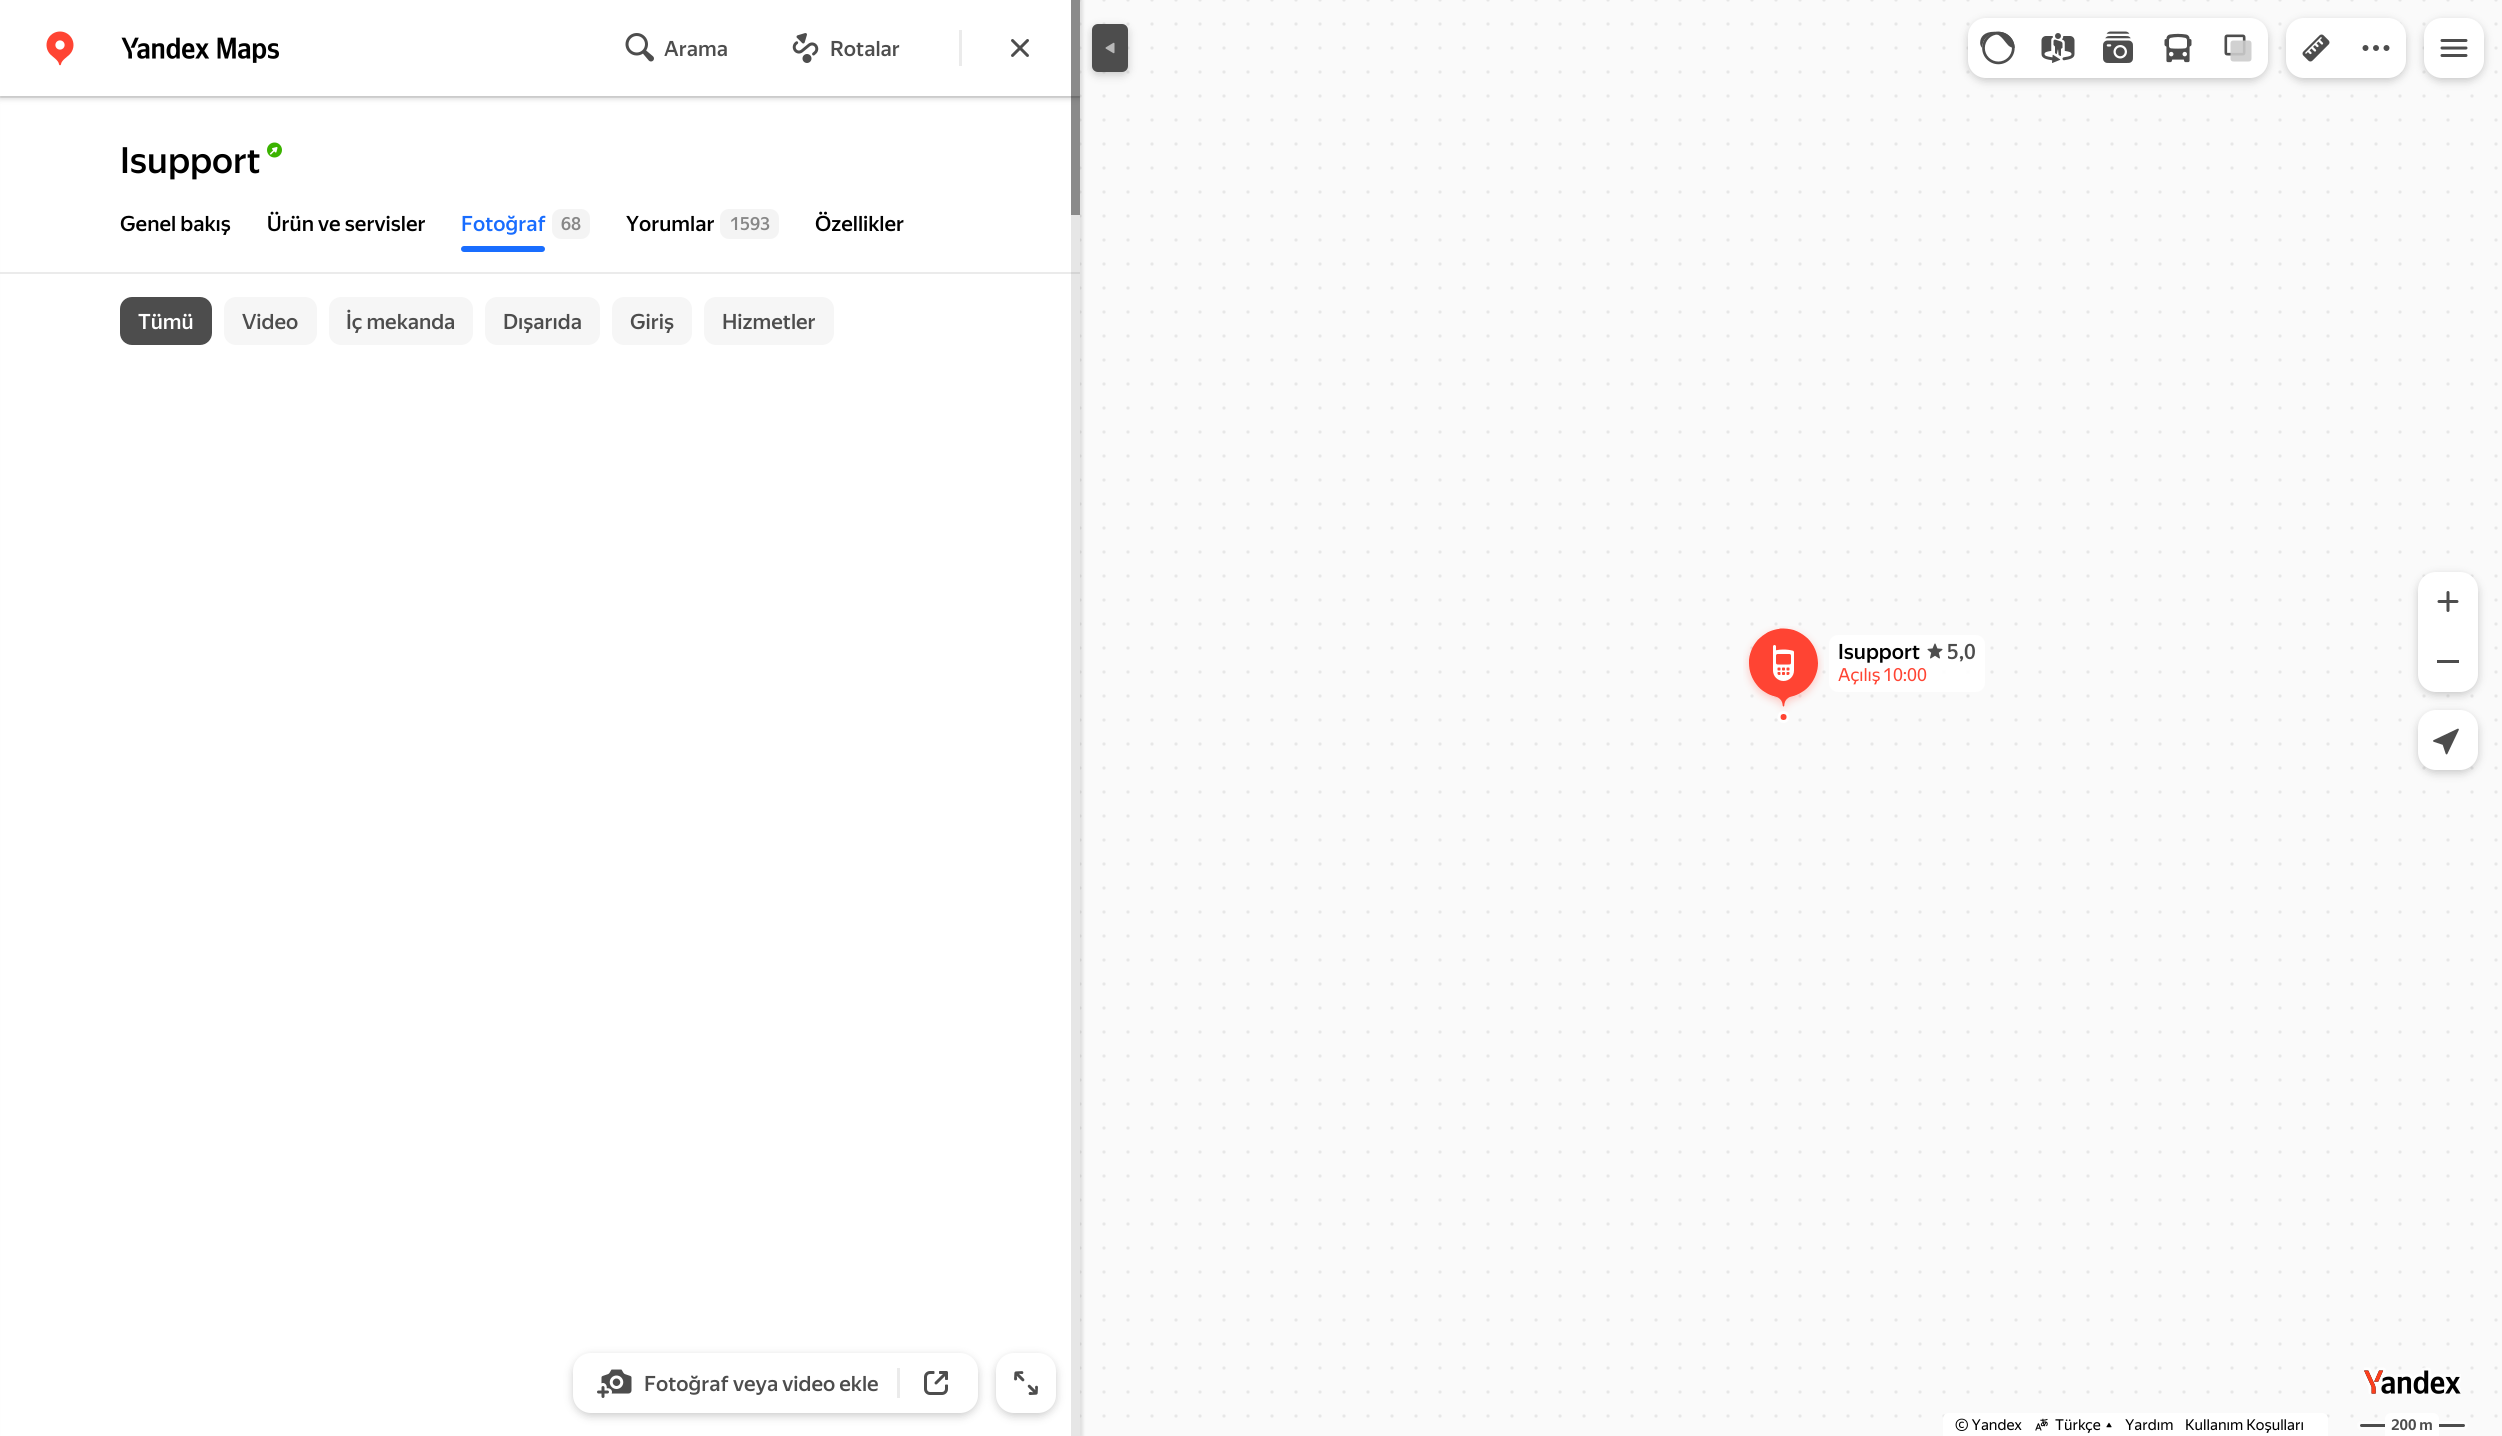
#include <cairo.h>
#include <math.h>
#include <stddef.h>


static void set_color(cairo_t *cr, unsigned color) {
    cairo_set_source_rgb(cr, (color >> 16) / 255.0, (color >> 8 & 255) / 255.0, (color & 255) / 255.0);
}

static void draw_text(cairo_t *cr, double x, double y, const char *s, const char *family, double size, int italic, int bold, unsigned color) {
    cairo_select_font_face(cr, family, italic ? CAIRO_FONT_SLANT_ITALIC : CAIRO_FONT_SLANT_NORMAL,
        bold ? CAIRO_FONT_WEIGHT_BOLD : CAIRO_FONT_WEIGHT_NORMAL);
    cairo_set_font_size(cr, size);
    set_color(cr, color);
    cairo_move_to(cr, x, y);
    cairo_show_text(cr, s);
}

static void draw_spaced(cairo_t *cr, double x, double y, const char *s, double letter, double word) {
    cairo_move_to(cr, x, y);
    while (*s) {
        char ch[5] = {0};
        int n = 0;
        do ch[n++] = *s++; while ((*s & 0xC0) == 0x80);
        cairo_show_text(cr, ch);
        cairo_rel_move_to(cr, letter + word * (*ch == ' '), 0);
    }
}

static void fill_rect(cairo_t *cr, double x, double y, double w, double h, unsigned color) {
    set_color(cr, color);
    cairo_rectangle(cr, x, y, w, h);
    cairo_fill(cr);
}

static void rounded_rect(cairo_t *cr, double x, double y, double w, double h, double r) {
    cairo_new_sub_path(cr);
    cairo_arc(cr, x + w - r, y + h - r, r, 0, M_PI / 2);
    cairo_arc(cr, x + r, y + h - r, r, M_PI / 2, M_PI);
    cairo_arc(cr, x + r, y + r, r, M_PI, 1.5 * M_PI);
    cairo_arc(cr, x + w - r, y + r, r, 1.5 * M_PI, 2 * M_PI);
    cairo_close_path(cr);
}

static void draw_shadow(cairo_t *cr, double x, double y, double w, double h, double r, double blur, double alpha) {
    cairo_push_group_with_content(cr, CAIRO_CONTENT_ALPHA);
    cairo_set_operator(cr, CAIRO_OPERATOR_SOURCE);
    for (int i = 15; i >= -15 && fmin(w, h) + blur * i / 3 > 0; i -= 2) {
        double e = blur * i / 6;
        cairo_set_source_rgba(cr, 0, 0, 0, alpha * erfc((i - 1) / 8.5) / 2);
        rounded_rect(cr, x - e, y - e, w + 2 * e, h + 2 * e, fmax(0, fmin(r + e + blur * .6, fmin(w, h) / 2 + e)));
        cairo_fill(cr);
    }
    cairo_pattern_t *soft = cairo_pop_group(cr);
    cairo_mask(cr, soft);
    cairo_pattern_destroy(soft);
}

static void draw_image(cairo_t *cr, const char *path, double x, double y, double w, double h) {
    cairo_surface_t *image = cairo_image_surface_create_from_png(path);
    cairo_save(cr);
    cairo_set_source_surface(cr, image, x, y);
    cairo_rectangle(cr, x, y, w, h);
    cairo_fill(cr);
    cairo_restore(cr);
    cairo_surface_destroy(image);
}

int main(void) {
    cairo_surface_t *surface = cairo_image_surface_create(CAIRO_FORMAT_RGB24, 2502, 1436);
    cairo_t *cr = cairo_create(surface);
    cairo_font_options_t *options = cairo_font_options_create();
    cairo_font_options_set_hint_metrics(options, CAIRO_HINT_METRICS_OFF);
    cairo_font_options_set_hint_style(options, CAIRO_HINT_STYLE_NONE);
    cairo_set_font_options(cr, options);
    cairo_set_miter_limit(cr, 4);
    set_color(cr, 0xFFFFFF);
    cairo_paint(cr);
    draw_image(cr, "assets/img1.png", 1080, 0, 1422, 1436);
    set_color(cr, 0x000000);
    draw_shadow(cr, 3, 0, 1080, 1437, 0, 1.5, 0.1);
    fill_rect(cr, 1, 98, 1079, 1338, 0xFFFFFF);
    fill_rect(cr, 0, 96, 1080, 2, 0xEBEBEB);
    cairo_save(cr);
    cairo_rectangle(cr, 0, 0, 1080, 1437);
    cairo_clip(cr);
    set_color(cr, 0x000000);
    draw_shadow(cr, 0, 92, 1080, 6, 0, 3, 0.2);
    cairo_restore(cr);
    set_color(cr, 0x000000);
    draw_shadow(cr, 1092, 27, 36, 48, 6, 4.5, 0.2);
    fill_rect(cr, 0, 0, 1080, 96, 0xFFFFFF);
    draw_image(cr, "assets/img2.png", 46, 31, 28, 35);
    draw_image(cr, "assets/img3.png", 121, 37, 158, 26);
    draw_image(cr, "assets/img4.png", 625, 33, 29, 29);
    draw_text(cr, 664, 56, "Arama", "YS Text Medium", 21, 0, 0, 0x4D4D4D);
    draw_image(cr, "assets/img5.png", 792, 33, 27, 30);
    draw_text(cr, 830, 56, "Rotalar", "YS Text Medium", 21, 0, 0, 0x4D4D4D);
    fill_rect(cr, 959, 30, 3, 36, 0xEBEBEB);
    draw_image(cr, "assets/img6.png", 1011, 39, 18, 18);
    draw_text(cr, 120, 173, "Isupport", "YS Text Medium", 36, 0, 0, 0x000000);
    draw_image(cr, "assets/img7.png", 267, 142, 15, 16);
    draw_text(cr, 120, 231, "Genel bakış", "YS Text Medium", 21, 0, 0, 0x000000);
    draw_text(cr, 267, 231, "Ürün ve servisler", "YS Text Medium", 21, 0, 0, 0x000000);
    draw_text(cr, 461, 231, "Fotoğraf", "YS Text Medium", 21, 0, 0, 0x196DFF);
    set_color(cr, 0xF4F4F4);
    rounded_rect(cr, 552, 209, 38, 30, 9);
    cairo_fill(cr);
    draw_text(cr, 561, 230, "68", "YS Text Medium", 18, 0, 0, 0x878787);
    draw_text(cr, 626, 231, "Yorumlar", "YS Text Medium", 21, 0, 0, 0x000000);
    set_color(cr, 0xF4F4F4);
    rounded_rect(cr, 720, 209, 59, 30, 9);
    cairo_fill(cr);
    draw_text(cr, 730, 230, "1593", "YS Text Medium", 18, 0, 0, 0x878787);
    draw_text(cr, 815, 231, "Özellikler", "YS Text Medium", 21, 0, 0, 0x000000);
    set_color(cr, 0x196DFF);
    rounded_rect(cr, 461, 246, 84, 6, 3);
    cairo_fill(cr);
    fill_rect(cr, 0, 272, 1080, 2, 0xEBEBEB);
    set_color(cr, 0x4D4D4D);
    rounded_rect(cr, 120, 297, 92, 48, 12);
    cairo_fill(cr);
    draw_text(cr, 138, 329, "Tümü", "YS Text Medium", 21, 0, 0, 0xFFFFFF);
    set_color(cr, 0xF6F6F6);
    rounded_rect(cr, 224, 297, 93, 48, 12);
    cairo_fill(cr);
    draw_text(cr, 242, 329, "Video", "YS Text Medium", 21, 0, 0, 0x4D4D4D);
    set_color(cr, 0xF6F6F6);
    rounded_rect(cr, 329, 297, 144, 48, 12);
    cairo_fill(cr);
    draw_text(cr, 346, 329, "İç mekanda", "YS Text Medium", 21, 0, 0, 0x4D4D4D);
    set_color(cr, 0xF6F6F6);
    rounded_rect(cr, 485, 297, 115, 48, 12);
    cairo_fill(cr);
    draw_text(cr, 503, 329, "Dışarıda", "YS Text Medium", 21, 0, 0, 0x4D4D4D);
    set_color(cr, 0xF6F6F6);
    rounded_rect(cr, 612, 297, 80, 48, 12);
    cairo_fill(cr);
    draw_text(cr, 630, 329, "Giriş", "YS Text Medium", 21, 0, 0, 0x4D4D4D);
    set_color(cr, 0xF6F6F6);
    rounded_rect(cr, 704, 297, 130, 48, 12);
    cairo_fill(cr);
    draw_text(cr, 722, 329, "Hizmetler", "YS Text Medium", 21, 0, 0, 0x4D4D4D);
    set_color(cr, 0x000000);
    draw_shadow(cr, 573, 1356, 405, 60, 18, 4.5, 0.2);
    set_color(cr, 0xFFFFFF);
    rounded_rect(cr, 573, 1353, 405, 60, 18);
    cairo_fill(cr);
    draw_image(cr, "assets/img8.png", 597, 1369, 35, 29);
    draw_text(cr, 644, 1391, "Fotoğraf veya video ekle", "YS Text Medium", 21, 0, 0, 0x4D4D4D);
    fill_rect(cr, 897, 1368, 3, 30, 0xEBEBEB);
    draw_image(cr, "assets/img9.png", 924, 1371, 24, 24);
    set_color(cr, 0x000000);
    draw_shadow(cr, 996, 1356, 60, 60, 18, 4.5, 0.2);
    set_color(cr, 0xFFFFFF);
    rounded_rect(cr, 996, 1353, 60, 60, 18);
    cairo_fill(cr);
    draw_image(cr, "assets/img10.png", 1014, 1371, 24, 24);
    cairo_set_source_rgba(cr, 0, 0, 0, 0.1);
    cairo_rectangle(cr, 1071, 0, 9, 1436);
    cairo_fill(cr);
    cairo_set_source_rgba(cr, 0, 0, 0, 0.4);
    cairo_rectangle(cr, 1071, 0, 9, 215);
    cairo_fill(cr);
    set_color(cr, 0x4D4D4D);
    rounded_rect(cr, 1092, 24, 36, 48, 6);
    cairo_fill(cr);
    draw_image(cr, "assets/img11.png", 1105, 42, 10, 12);
    set_color(cr, 0x000000);
    draw_shadow(cr, 1968, 21, 300, 60, 18, 4.5, 0.2);
    set_color(cr, 0xFFFFFF);
    cairo_new_path(cr);
    cairo_move_to(cr, 1986, 18);
    cairo_line_to(cr, 2028, 18);
    cairo_line_to(cr, 2028, 78);
    cairo_line_to(cr, 1986, 78);
    cairo_curve_to(cr, 1976, 78, 1968, 70, 1968, 60);
    cairo_line_to(cr, 1968, 36);
    cairo_curve_to(cr, 1968, 26, 1976, 18, 1986, 18);
    cairo_close_path(cr);
    cairo_fill(cr);
    draw_image(cr, "assets/img12.png", 1980, 31, 35, 34);
    fill_rect(cr, 2028, 18, 180, 60, 0xFFFFFF);
    draw_image(cr, "assets/img13.png", 2041, 33, 34, 30);
    cairo_new_path(cr);
    cairo_move_to(cr, 2208, 18);
    cairo_line_to(cr, 2250, 18);
    cairo_curve_to(cr, 2260, 18, 2268, 26, 2268, 36);
    cairo_line_to(cr, 2268, 60);
    cairo_curve_to(cr, 2268, 70, 2260, 78, 2250, 78);
    cairo_line_to(cr, 2208, 78);
    cairo_close_path(cr);
    cairo_fill(cr);
    draw_image(cr, "assets/img14.png", 2224, 34, 28, 28);
    draw_image(cr, "assets/img15.png", 2103, 31, 30, 32);
    draw_image(cr, "assets/img16.png", 2164, 33, 28, 30);
    set_color(cr, 0x000000);
    draw_shadow(cr, 2286, 21, 120, 60, 18, 4.5, 0.2);
    set_color(cr, 0xFFFFFF);
    cairo_new_path(cr);
    cairo_move_to(cr, 2304, 18);
    cairo_line_to(cr, 2346, 18);
    cairo_line_to(cr, 2346, 78);
    cairo_line_to(cr, 2304, 78);
    cairo_curve_to(cr, 2294, 78, 2286, 70, 2286, 60);
    cairo_line_to(cr, 2286, 36);
    cairo_curve_to(cr, 2286, 26, 2294, 18, 2304, 18);
    cairo_close_path(cr);
    cairo_fill(cr);
    draw_image(cr, "assets/img17.png", 2302, 34, 28, 28);
    cairo_new_path(cr);
    cairo_move_to(cr, 2346, 18);
    cairo_line_to(cr, 2388, 18);
    cairo_curve_to(cr, 2398, 18, 2406, 26, 2406, 36);
    cairo_line_to(cr, 2406, 60);
    cairo_curve_to(cr, 2406, 70, 2398, 78, 2388, 78);
    cairo_line_to(cr, 2346, 78);
    cairo_close_path(cr);
    cairo_fill(cr);
    draw_image(cr, "assets/img18.png", 2362, 45, 28, 6);
    set_color(cr, 0x000000);
    draw_shadow(cr, 2424, 21, 60, 60, 18, 4.5, 0.2);
    set_color(cr, 0xFFFFFF);
    rounded_rect(cr, 2424, 18, 60, 60, 18);
    cairo_fill(cr);
    draw_image(cr, "assets/img19.png", 2440, 39, 28, 18);
    set_color(cr, 0x000000);
    draw_shadow(cr, 2418, 575, 60, 120, 18, 4.5, 0.2);
    set_color(cr, 0xFFFFFF);
    cairo_new_path(cr);
    cairo_move_to(cr, 2436, 572);
    cairo_line_to(cr, 2460, 572);
    cairo_curve_to(cr, 2470, 572, 2478, 580, 2478, 590);
    cairo_line_to(cr, 2478, 632);
    cairo_line_to(cr, 2418, 632);
    cairo_line_to(cr, 2418, 590);
    cairo_curve_to(cr, 2418, 580, 2426, 572, 2436, 572);
    cairo_close_path(cr);
    cairo_fill(cr);
    draw_image(cr, "assets/img20.png", 2437, 591, 22, 21);
    cairo_new_path(cr);
    cairo_move_to(cr, 2418, 632);
    cairo_line_to(cr, 2478, 632);
    cairo_line_to(cr, 2478, 674);
    cairo_curve_to(cr, 2478, 684, 2470, 692, 2460, 692);
    cairo_line_to(cr, 2436, 692);
    cairo_curve_to(cr, 2426, 692, 2418, 684, 2418, 674);
    cairo_close_path(cr);
    cairo_fill(cr);
    fill_rect(cr, 2437, 660, 22, 3, 0x4D4D4D);
    set_color(cr, 0x000000);
    draw_shadow(cr, 2418, 713, 60, 60, 18, 4.5, 0.2);
    set_color(cr, 0xFFFFFF);
    rounded_rect(cr, 2418, 710, 60, 60, 18);
    cairo_fill(cr);
    draw_image(cr, "assets/img21.png", 2433, 728, 26, 27);
    draw_image(cr, "assets/img22.png", 2364, 1367, 97, 27);
    cairo_new_path(cr);
    cairo_move_to(cr, 1949, 1413);
    cairo_line_to(cr, 2322, 1413);
    cairo_curve_to(cr, 2325.5, 1413, 2328, 1415.5, 2328, 1419);
    cairo_line_to(cr, 2328, 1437);
    cairo_line_to(cr, 1943, 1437);
    cairo_line_to(cr, 1943, 1419);
    cairo_curve_to(cr, 1943, 1415.5, 1945.5, 1413, 1949, 1413);
    cairo_close_path(cr);
    cairo_fill(cr);
    draw_text(cr, 1955, 1430, "© Yandex", "YS Text", 15, 0, 0, 0x000000);
    draw_image(cr, "assets/img23.png", 2035, 1418, 13, 13);
    draw_text(cr, 2055, 1430, "Türkçe", "YS Text", 15, 0, 0, 0x000000);
    draw_image(cr, "assets/img24.png", 2106, 1422, 6, 6);
    draw_text(cr, 2125, 1430, "Yardım", "YS Text", 15, 0, 0, 0x000000);
    draw_text(cr, 2185, 1430, "Kullanım Koşulları", "YS Text", 15, 0, 0, 0x000000);
    set_color(cr, 0xFDFDFD);
    rounded_rect(cr, 2357, 1421, 111, 9, 4.5);
    cairo_fill(cr);
    set_color(cr, 0x4D4D4D);
    rounded_rect(cr, 2360, 1424, 105, 3, 1.5);
    cairo_fill(cr);
    set_color(cr, 0xFFFFFF);
    cairo_new_path(cr);
    cairo_move_to(cr, 2391, 1413);
    cairo_line_to(cr, 2433, 1413);
    cairo_curve_to(cr, 2436.5, 1413, 2439, 1415.5, 2439, 1419);
    cairo_line_to(cr, 2439, 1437);
    cairo_line_to(cr, 2385, 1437);
    cairo_line_to(cr, 2385, 1419);
    cairo_curve_to(cr, 2385, 1415.5, 2387.5, 1413, 2391, 1413);
    cairo_close_path(cr);
    cairo_fill(cr);
    draw_text(cr, 2391, 1430, "200 m", "YS Text", 15, 0, 1, 0x4D4D4D);
    draw_image(cr, "assets/img25.png", 1743, 626, 81, 97);
    draw_image(cr, "assets/img26.png", 1773, 645, 21, 36);
    cairo_set_source_rgba(cr, 1, 1, 1, 0.9);
    rounded_rect(cr, 1829, 635, 156, 57, 9);
    cairo_fill(cr);
    draw_text(cr, 1838, 659, "Isupport", "YS Text Medium", 21, 0, 0, 0x000000);
    draw_image(cr, "assets/img27.png", 1927, 643, 16, 16);
    draw_text(cr, 1947, 659, "5,0", "YS Text Medium", 21, 0, 0, 0x4D4D4D);
    cairo_select_font_face(cr, "YS Text", CAIRO_FONT_SLANT_NORMAL, CAIRO_FONT_WEIGHT_NORMAL);
    cairo_set_font_size(cr, 18);
    set_color(cr, 0xFF4433);
    draw_spaced(cr, 1838, 681, "Açılış 10:00", 0, -1);
    cairo_surface_write_to_png(surface, "output.png");
    cairo_font_options_destroy(options);
    cairo_destroy(cr);
    cairo_surface_destroy(surface);
    return 0;
}
